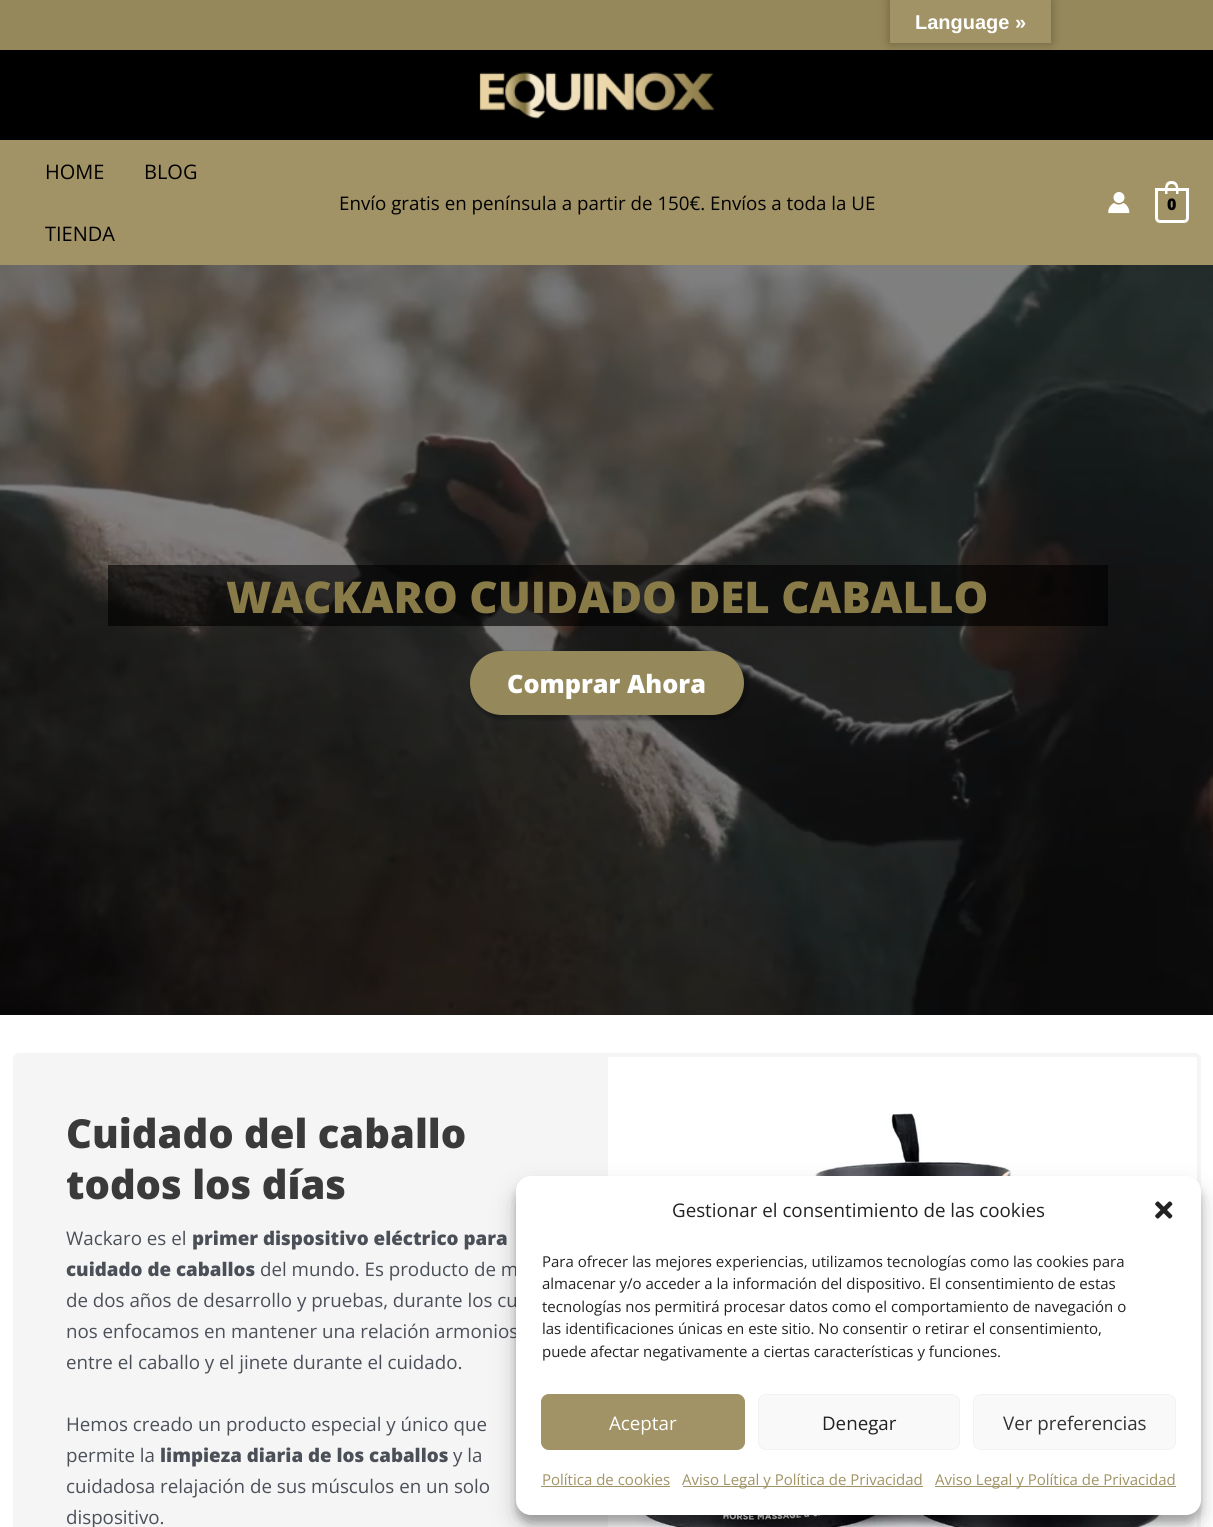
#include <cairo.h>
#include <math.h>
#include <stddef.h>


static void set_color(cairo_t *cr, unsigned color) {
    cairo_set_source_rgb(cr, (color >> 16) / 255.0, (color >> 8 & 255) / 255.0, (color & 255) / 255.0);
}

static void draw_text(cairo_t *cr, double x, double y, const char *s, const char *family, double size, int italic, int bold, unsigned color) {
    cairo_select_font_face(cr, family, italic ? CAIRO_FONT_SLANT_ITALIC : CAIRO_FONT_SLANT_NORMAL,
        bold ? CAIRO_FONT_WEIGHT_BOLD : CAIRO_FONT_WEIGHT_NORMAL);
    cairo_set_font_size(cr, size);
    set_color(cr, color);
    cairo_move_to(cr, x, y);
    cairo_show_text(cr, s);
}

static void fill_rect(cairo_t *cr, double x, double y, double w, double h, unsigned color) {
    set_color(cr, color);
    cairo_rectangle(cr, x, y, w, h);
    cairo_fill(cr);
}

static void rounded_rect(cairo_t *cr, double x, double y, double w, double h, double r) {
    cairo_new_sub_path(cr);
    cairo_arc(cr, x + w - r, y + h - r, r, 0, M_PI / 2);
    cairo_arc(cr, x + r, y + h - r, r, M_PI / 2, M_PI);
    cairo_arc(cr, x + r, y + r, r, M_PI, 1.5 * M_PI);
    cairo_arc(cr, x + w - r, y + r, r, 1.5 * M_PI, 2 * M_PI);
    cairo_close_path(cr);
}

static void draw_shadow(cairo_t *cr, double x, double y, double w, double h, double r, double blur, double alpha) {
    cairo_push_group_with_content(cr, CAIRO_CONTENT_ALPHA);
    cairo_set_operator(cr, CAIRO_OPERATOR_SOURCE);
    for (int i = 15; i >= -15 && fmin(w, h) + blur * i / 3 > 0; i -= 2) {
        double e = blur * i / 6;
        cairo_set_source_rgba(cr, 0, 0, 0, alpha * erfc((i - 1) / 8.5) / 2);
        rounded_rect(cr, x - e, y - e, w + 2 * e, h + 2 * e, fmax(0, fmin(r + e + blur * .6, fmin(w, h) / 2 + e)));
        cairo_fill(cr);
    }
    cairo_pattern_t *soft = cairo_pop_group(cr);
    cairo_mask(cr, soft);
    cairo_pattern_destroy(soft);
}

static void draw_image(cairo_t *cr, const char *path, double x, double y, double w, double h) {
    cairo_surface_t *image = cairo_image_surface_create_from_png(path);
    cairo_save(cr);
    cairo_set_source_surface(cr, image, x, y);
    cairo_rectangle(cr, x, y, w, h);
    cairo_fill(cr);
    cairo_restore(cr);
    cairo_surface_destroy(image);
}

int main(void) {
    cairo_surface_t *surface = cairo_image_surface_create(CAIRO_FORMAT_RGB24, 1213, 1527);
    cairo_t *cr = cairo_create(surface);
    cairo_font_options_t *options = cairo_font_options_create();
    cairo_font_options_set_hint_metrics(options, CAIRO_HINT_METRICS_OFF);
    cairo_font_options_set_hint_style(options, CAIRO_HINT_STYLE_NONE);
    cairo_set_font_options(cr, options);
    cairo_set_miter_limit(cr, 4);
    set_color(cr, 0xFFFFFF);
    cairo_paint(cr);
    fill_rect(cr, 0, 0, 1213, 50, 0x95885A);
    fill_rect(cr, 0, 50, 1213, 90, 0x000000);
    set_color(cr, 0x000000);
    draw_shadow(cr, 890, 0, 161, 43, 0, 5.5, 0.3);
    fill_rect(cr, 890, 0, 161, 43, 0xA19365);
    draw_text(cr, 915, 29, "Language »", "Liberation Sans", 20, 0, 1, 0xFFFFFF);
    draw_image(cr, "assets/img1.png", 479, 72, 236, 47);
    fill_rect(cr, 0, 140, 1213, 125, 0xA19365);
    draw_text(cr, 45, 179, "HOME", "Open Sans", 20, 0, 0, 0x000000);
    draw_text(cr, 144, 179, "BLOG", "Open Sans", 20, 0, 0, 0x000000);
    draw_text(cr, 45, 241, "TIENDA", "Open Sans", 20, 0, 0, 0x000000);
    draw_text(cr, 339, 210, "Envío gratis en península a partir de 150€. Envíos a toda la UE", "Open Sans", 18.75, 0, 0, 0x000000);
    draw_image(cr, "assets/img2.png", 1108, 192, 22, 22);
    cairo_new_path(cr);
    cairo_move_to(cr, 1156.5, 189.5);
    cairo_line_to(cr, 1187.5, 189.5);
    cairo_line_to(cr, 1187.5, 218);
    cairo_curve_to(cr, 1187.5, 220, 1186, 221.5, 1184, 221.5);
    cairo_line_to(cr, 1160, 221.5);
    cairo_curve_to(cr, 1158, 221.5, 1156.5, 220, 1156.5, 218);
    cairo_close_path(cr);
    set_color(cr, 0xFFFFFF);
    cairo_set_line_width(cr, 3);
    cairo_stroke(cr);
    cairo_set_fill_rule(cr, CAIRO_FILL_RULE_EVEN_ODD);
    cairo_new_path(cr);
    cairo_move_to(cr, 1171.5, 181);
    cairo_curve_to(cr, 1179, 181, 1178.5, 188.5, 1178.5, 194);
    cairo_line_to(cr, 1165, 194);
    cairo_curve_to(cr, 1165, 188.5, 1164, 181, 1171.5, 181);
    cairo_close_path(cr);
    cairo_move_to(cr, 1171.5, 184);
    cairo_curve_to(cr, 1177, 184, 1176, 190, 1176, 194);
    cairo_line_to(cr, 1167.5, 194);
    cairo_curve_to(cr, 1167.5, 190, 1166.5, 184, 1171.5, 184);
    cairo_close_path(cr);
    cairo_fill(cr);
    draw_text(cr, 1167, 210, "0", "Open Sans ExtraBold", 16, 0, 0, 0x000000);
    fill_rect(cr, 0, 265, 1213, 750, 0x000000);
    draw_image(cr, "assets/img3.png", 0, 265, 1213, 750);
    cairo_set_source_rgba(cr, 0, 0, 0, 0.65);
    cairo_rectangle(cr, 108, 565, 1000, 61);
    cairo_fill(cr);
    draw_text(cr, 226, 613, "WACKARO CUIDADO DEL CABALLO", "Open Sans ExtraBold", 43.75, 0, 0, 0x897B48);
    set_color(cr, 0x000000);
    draw_shadow(cr, 470, 651, 279, 69, 34.5, 1, 0.2);
    set_color(cr, 0x95885A);
    rounded_rect(cr, 470, 651, 274, 64, 32);
    cairo_fill(cr);
    draw_text(cr, 507, 693, "Comprar Ahora", "Open Sans ExtraBold", 25.25, 0, 0, 0xFFFFFF);
    rounded_rect(cr, 15, 1055, 1184, 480, 4);
    set_color(cr, 0xF5F5F5);
    cairo_set_line_width(cr, 4);
    cairo_stroke(cr);
    cairo_new_path(cr);
    cairo_move_to(cr, 22, 1056);
    cairo_line_to(cr, 608, 1056);
    cairo_line_to(cr, 608, 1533);
    cairo_line_to(cr, 22, 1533);
    cairo_curve_to(cr, 18.5, 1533, 16, 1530.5, 16, 1527);
    cairo_line_to(cr, 16, 1062);
    cairo_curve_to(cr, 16, 1058.5, 18.5, 1056, 22, 1056);
    cairo_close_path(cr);
    cairo_fill(cr);
    draw_text(cr, 66, 1148, "Cuidado del caballo", "Open Sans ExtraBold", 40, 0, 0, 0x3A3A3A);
    draw_text(cr, 66, 1199, "todos los días", "Open Sans ExtraBold", 40, 0, 0, 0x3A3A3A);
    draw_text(cr, 66, 1245, "Wackaro es el", "Open Sans", 18.75, 0, 0, 0x4B4F58);
    draw_text(cr, 192, 1245, "primer dispositivo eléctrico para", "Open Sans ExtraBold", 18.75, 0, 0, 0x4B4F58);
    draw_text(cr, 66, 1276, "cuidado de caballos", "Open Sans ExtraBold", 18.75, 0, 0, 0x4B4F58);
    draw_text(cr, 260, 1276, "del mundo. Es producto de m", "Open Sans", 18.75, 0, 0, 0x4B4F58);
    draw_text(cr, 66, 1307, "de dos años de desarrollo y pruebas, durante los cu", "Open Sans", 18.75, 0, 0, 0x4B4F58);
    draw_text(cr, 66, 1338, "nos enfocamos en mantener una relación armonios", "Open Sans", 18.75, 0, 0, 0x4B4F58);
    draw_text(cr, 66, 1369, "entre el caballo y el jinete durante el cuidado.", "Open Sans", 18.75, 0, 0, 0x4B4F58);
    draw_text(cr, 66, 1431, "Hemos creado un producto especial y único que", "Open Sans", 18.75, 0, 0, 0x4B4F58);
    draw_text(cr, 66, 1462, "permite la", "Open Sans", 18.75, 0, 0, 0x4B4F58);
    draw_text(cr, 160, 1462, "limpieza diaria de los caballos", "Open Sans ExtraBold", 18.75, 0, 0, 0x4B4F58);
    draw_text(cr, 453, 1462, "y la", "Open Sans", 18.75, 0, 0, 0x4B4F58);
    draw_text(cr, 66, 1493, "cuidadosa relajación de sus músculos en un solo", "Open Sans", 18.75, 0, 0, 0x4B4F58);
    draw_text(cr, 66, 1524, "dispositivo.", "Open Sans", 18.75, 0, 0, 0x4B4F58);
    draw_image(cr, "assets/img4.png", 636, 1113, 530, 414);
    set_color(cr, 0x000000);
    draw_shadow(cr, 516, 1184, 685, 339, 15, 4, 0.23);
    draw_shadow(cr, 516, 1189, 685, 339, 15, 12.5, 0.19);
    set_color(cr, 0xFFFFFF);
    rounded_rect(cr, 516, 1176, 685, 339, 15);
    cairo_fill(cr);
    draw_text(cr, 672, 1217, "Gestionar el consentimiento de las cookies", "Open Sans", 18.75, 0, 0, 0x222222);
    draw_image(cr, "assets/img5.png", 1155, 1201, 18, 18);
    draw_text(cr, 542, 1267, "Para ofrecer las mejores experiencias, utilizamos tecnologías como las cookies para", "Open Sans", 15, 0, 0, 0x222222);
    draw_text(cr, 542, 1289, "almacenar y/o acceder a la información del dispositivo. El consentimiento de estas", "Open Sans", 15, 0, 0, 0x222222);
    draw_text(cr, 542, 1312, "tecnologías nos permitirá procesar datos como el comportamiento de navegación o", "Open Sans", 15, 0, 0, 0x222222);
    draw_text(cr, 542, 1334, "las identificaciones únicas en este sitio. No consentir o retirar el consentimiento,", "Open Sans", 15, 0, 0, 0x222222);
    draw_text(cr, 542, 1357, "puede afectar negativamente a ciertas características y funciones.", "Open Sans", 15, 0, 0, 0x222222);
    set_color(cr, 0xA19365);
    rounded_rect(cr, 541.5, 1394.5, 203, 55, 7.5);
    cairo_fill_preserve(cr);
    cairo_set_line_width(cr, 1);
    cairo_stroke(cr);
    draw_text(cr, 609, 1430, "Aceptar", "Open Sans", 18.75, 0, 0, 0xFFFFFF);
    set_color(cr, 0xF9F9F9);
    rounded_rect(cr, 758.5, 1394.5, 201, 55, 7.5);
    cairo_fill_preserve(cr);
    set_color(cr, 0xF2F2F2);
    cairo_stroke(cr);
    draw_text(cr, 822, 1430, "Denegar", "Open Sans", 18.75, 0, 0, 0x222222);
    set_color(cr, 0xF9F9F9);
    rounded_rect(cr, 973.5, 1394.5, 202, 55, 7.5);
    cairo_fill_preserve(cr);
    set_color(cr, 0xF2F2F2);
    cairo_stroke(cr);
    draw_text(cr, 1003, 1430, "Ver preferencias", "Open Sans", 18.75, 0, 0, 0x333333);
    draw_text(cr, 542, 1485, "Política de cookies", "Open Sans", 15, 0, 0, 0xA19365);
    fill_rect(cr, 541, 1486, 129, 1, 0xA19365);
    fill_rect(cr, 683, 1486, 240, 1, 0xA19365);
    draw_text(cr, 682, 1485, "Aviso Legal y Política de Privacidad", "Open Sans", 15, 0, 0, 0xA19365);
    fill_rect(cr, 935, 1486, 241, 1, 0xA19365);
    draw_text(cr, 935, 1485, "Aviso Legal y Política de Privacidad", "Open Sans", 15, 0, 0, 0xA19365);
    cairo_surface_write_to_png(surface, "output.png");
    cairo_font_options_destroy(options);
    cairo_destroy(cr);
    cairo_surface_destroy(surface);
    return 0;
}
